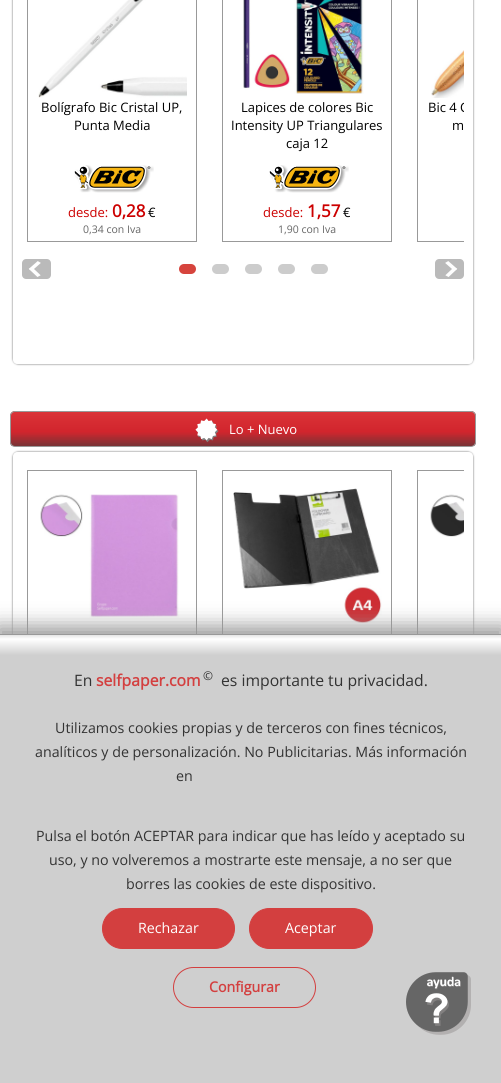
#include <cairo.h>
#include <math.h>
#include <stddef.h>


static void set_color(cairo_t *cr, unsigned color) {
    cairo_set_source_rgb(cr, (color >> 16) / 255.0, (color >> 8 & 255) / 255.0, (color & 255) / 255.0);
}

static void draw_text(cairo_t *cr, double x, double y, const char *s, const char *family, double size, int italic, int bold, unsigned color) {
    cairo_select_font_face(cr, family, italic ? CAIRO_FONT_SLANT_ITALIC : CAIRO_FONT_SLANT_NORMAL,
        bold ? CAIRO_FONT_WEIGHT_BOLD : CAIRO_FONT_WEIGHT_NORMAL);
    cairo_set_font_size(cr, size);
    set_color(cr, color);
    cairo_move_to(cr, x, y);
    cairo_show_text(cr, s);
}

static void fill_rect(cairo_t *cr, double x, double y, double w, double h, unsigned color) {
    set_color(cr, color);
    cairo_rectangle(cr, x, y, w, h);
    cairo_fill(cr);
}

static void rounded_rect(cairo_t *cr, double x, double y, double w, double h, double r) {
    cairo_new_sub_path(cr);
    cairo_arc(cr, x + w - r, y + h - r, r, 0, M_PI / 2);
    cairo_arc(cr, x + r, y + h - r, r, M_PI / 2, M_PI);
    cairo_arc(cr, x + r, y + r, r, M_PI, 1.5 * M_PI);
    cairo_arc(cr, x + w - r, y + r, r, 1.5 * M_PI, 2 * M_PI);
    cairo_close_path(cr);
}

static void draw_shadow(cairo_t *cr, double x, double y, double w, double h, double r, double blur, double alpha) {
    cairo_push_group_with_content(cr, CAIRO_CONTENT_ALPHA);
    cairo_set_operator(cr, CAIRO_OPERATOR_SOURCE);
    for (int i = 15; i >= -15 && fmin(w, h) + blur * i / 3 > 0; i -= 2) {
        double e = blur * i / 6;
        cairo_set_source_rgba(cr, 0, 0, 0, alpha * erfc((i - 1) / 8.5) / 2);
        rounded_rect(cr, x - e, y - e, w + 2 * e, h + 2 * e, fmax(0, fmin(r + e + blur * .6, fmin(w, h) / 2 + e)));
        cairo_fill(cr);
    }
    cairo_pattern_t *soft = cairo_pop_group(cr);
    cairo_mask(cr, soft);
    cairo_pattern_destroy(soft);
}

static void draw_image(cairo_t *cr, const char *path, double x, double y, double w, double h) {
    cairo_surface_t *image = cairo_image_surface_create_from_png(path);
    cairo_save(cr);
    cairo_set_source_surface(cr, image, x, y);
    cairo_rectangle(cr, x, y, w, h);
    cairo_fill(cr);
    cairo_restore(cr);
    cairo_surface_destroy(image);
}

int main(void) {
    cairo_surface_t *surface = cairo_image_surface_create(CAIRO_FORMAT_RGB24, 501, 1083);
    cairo_t *cr = cairo_create(surface);
    cairo_font_options_t *options = cairo_font_options_create();
    cairo_font_options_set_hint_metrics(options, CAIRO_HINT_METRICS_OFF);
    cairo_font_options_set_hint_style(options, CAIRO_HINT_STYLE_NONE);
    cairo_set_font_options(cr, options);
    cairo_set_miter_limit(cr, 4);
    cairo_pattern_t *gradient;
    set_color(cr, 0xFFFFFF);
    cairo_paint(cr);
    cairo_save(cr);
    cairo_set_fill_rule(cr, CAIRO_FILL_RULE_EVEN_ODD);
    cairo_new_path(cr);
    cairo_move_to(cr, 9, 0);
    cairo_line_to(cr, 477, 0);
    cairo_line_to(cr, 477, 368);
    cairo_line_to(cr, 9, 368);
    cairo_close_path(cr);
    cairo_move_to(cr, 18, -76);
    cairo_line_to(cr, 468, -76);
    cairo_curve_to(cr, 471, -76, 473, -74, 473, -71);
    cairo_line_to(cr, 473, 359);
    cairo_curve_to(cr, 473, 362, 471, 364, 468, 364);
    cairo_line_to(cr, 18, 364);
    cairo_curve_to(cr, 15, 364, 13, 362, 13, 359);
    cairo_line_to(cr, 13, -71);
    cairo_curve_to(cr, 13, -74, 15, -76, 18, -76);
    cairo_close_path(cr);
    cairo_clip(cr);
    set_color(cr, 0x666666);
    draw_shadow(cr, 13, -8, 460, 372, 5, 1, 1);
    cairo_restore(cr);
    cairo_rectangle(cr, 27.5, -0.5, 169, 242);
    set_color(cr, 0x999999);
    cairo_set_line_width(cr, 1);
    cairo_stroke(cr);
    draw_image(cr, "assets/img1.png", 38, 0, 149, 98);
    draw_text(cr, 41, 112, "Bolígrafo Bic Cristal UP,", "Open Sans", 13, 0, 0, 0x000000);
    draw_text(cr, 74, 130, "Punta Media", "Open Sans", 13, 0, 0, 0x000000);
    draw_image(cr, "assets/img2.png", 74, 165, 80, 28);
    draw_text(cr, 68, 217, "desde:", "Open Sans", 13, 0, 0, 0xCC0000);
    draw_text(cr, 112, 217, "0,28", "Open Sans", 17, 0, 1, 0xCC0000);
    draw_text(cr, 148, 217, "€", "Open Sans", 13, 0, 0, 0x000000);
    draw_text(cr, 83, 233, "0,34 con Iva", "Open Sans", 10.5, 0, 0, 0x666666);
    cairo_rectangle(cr, 222.5, -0.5, 169, 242);
    set_color(cr, 0x999999);
    cairo_stroke(cr);
    draw_image(cr, "assets/img3.png", 243, 0, 121, 94);
    draw_text(cr, 241, 112, "Lapices de colores Bic", "Open Sans", 13, 0, 0, 0x000000);
    draw_text(cr, 231, 130, "Intensity UP Triangulares", "Open Sans", 13, 0, 0, 0x000000);
    draw_text(cr, 286, 148, "caja 12", "Open Sans", 13, 0, 0, 0x000000);
    draw_image(cr, "assets/img2.png", 269, 165, 80, 28);
    draw_text(cr, 263, 217, "desde:", "Open Sans", 13, 0, 0, 0xCC0000);
    draw_text(cr, 307, 217, "1,57", "Open Sans", 17, 0, 1, 0xCC0000);
    draw_text(cr, 343, 217, "€", "Open Sans", 13, 0, 0, 0x000000);
    draw_text(cr, 278, 233, "1,90 con Iva", "Open Sans", 10.5, 0, 0, 0x666666);
    cairo_save(cr);
    cairo_rectangle(cr, 22, 0, 442, 259);
    cairo_clip(cr);
    cairo_rectangle(cr, 417.5, -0.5, 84, 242);
    set_color(cr, 0x999999);
    cairo_stroke(cr);
    cairo_restore(cr);
    draw_image(cr, "assets/img4.png", 431, 50, 33, 48);
    cairo_save(cr);
    cairo_rectangle(cr, 423, 98, 41, 60);
    cairo_clip(cr);
    draw_text(cr, 428, 112, "Bic 4 C", "Open Sans", 13, 0, 0, 0x000000);
    cairo_restore(cr);
    draw_text(cr, 452, 130, "m", "Open Sans", 13, 0, 0, 0x000000);
    draw_image(cr, "assets/img5.png", 22, 259, 29, 20);
    draw_image(cr, "assets/img6.png", 435, 259, 29, 20);
    set_color(cr, 0xD6443D);
    rounded_rect(cr, 179, 264, 17, 10, 5);
    cairo_fill(cr);
    set_color(cr, 0xCCCCCC);
    rounded_rect(cr, 212, 264, 17, 10, 5);
    cairo_fill(cr);
    rounded_rect(cr, 245, 264, 17, 10, 5);
    cairo_fill(cr);
    rounded_rect(cr, 278, 264, 17, 10, 5);
    cairo_fill(cr);
    rounded_rect(cr, 311, 264, 17, 10, 5);
    cairo_fill(cr);
    draw_image(cr, "assets/img7.png", 10, 411, 466, 35);
    rounded_rect(cr, 10.5, 411.5, 465, 35, 4.5);
    set_color(cr, 0x999999);
    cairo_stroke(cr);
    draw_image(cr, "assets/img8.png", 195, 418, 24, 25);
    draw_text(cr, 229, 434, "Lo + Nuevo", "Open Sans", 13, 0, 0, 0xFFFFFF);
    cairo_save(cr);
    cairo_set_fill_rule(cr, CAIRO_FILL_RULE_EVEN_ODD);
    cairo_new_path(cr);
    cairo_move_to(cr, 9, 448);
    cairo_line_to(cr, 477, 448);
    cairo_line_to(cr, 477, 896);
    cairo_line_to(cr, 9, 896);
    cairo_close_path(cr);
    cairo_move_to(cr, 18, 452);
    cairo_line_to(cr, 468, 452);
    cairo_curve_to(cr, 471, 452, 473, 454, 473, 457);
    cairo_line_to(cr, 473, 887);
    cairo_curve_to(cr, 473, 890, 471, 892, 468, 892);
    cairo_line_to(cr, 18, 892);
    cairo_curve_to(cr, 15, 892, 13, 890, 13, 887);
    cairo_line_to(cr, 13, 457);
    cairo_curve_to(cr, 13, 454, 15, 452, 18, 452);
    cairo_close_path(cr);
    cairo_clip(cr);
    set_color(cr, 0x666666);
    draw_shadow(cr, 13, 452, 460, 440, 5, 1, 1);
    cairo_restore(cr);
    cairo_rectangle(cr, 27.5, 470.5, 169, 299);
    set_color(cr, 0x999999);
    cairo_stroke(cr);
    draw_image(cr, "assets/img9.png", 40, 494, 139, 124);
    cairo_rectangle(cr, 222.5, 470.5, 169, 299);
    cairo_stroke(cr);
    draw_image(cr, "assets/img10.png", 233, 488, 149, 135);
    cairo_save(cr);
    cairo_rectangle(cr, 22, 465, 442, 322);
    cairo_clip(cr);
    cairo_rectangle(cr, 417.5, 470.5, 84, 299);
    cairo_stroke(cr);
    cairo_restore(cr);
    draw_image(cr, "assets/img11.png", 430, 494, 34, 43);
    set_color(cr, 0x999999);
    draw_shadow(cr, -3, 626, 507, 455, 0, 10, 1);
    gradient = cairo_pattern_create_linear(0, 635, 0, 655);
    cairo_pattern_add_color_stop_rgba(gradient, 0, 0.898, 0.898, 0.898, 1);
    cairo_pattern_add_color_stop_rgba(gradient, 0.2, 1, 1, 1, 1);
    cairo_pattern_add_color_stop_rgba(gradient, 1, 0.812, 0.812, 0.812, 1);
    cairo_set_source(cr, gradient);
    cairo_pattern_destroy(gradient);
    cairo_rectangle(cr, 0, 635, 501, 448);
    cairo_fill(cr);
    fill_rect(cr, 0, 634, 501, 1, 0x999999);
    draw_text(cr, 74, 686, "En", "Open Sans", 15.75, 0, 0, 0x333333);
    draw_text(cr, 96, 686, "selfpaper.com", "Open Sans", 15.75, 0, 1, 0xD33F3F);
    draw_text(cr, 203, 680, "©", "Open Sans", 12, 0, 0, 0x333333);
    draw_text(cr, 221, 686, "es importante tu privacidad.", "Open Sans", 15.75, 0, 0, 0x333333);
    draw_text(cr, 55, 733, "Utilizamos cookies propias y de terceros con fines técnicos,", "Open Sans", 14.25, 0, 0, 0x333333);
    draw_text(cr, 35, 757, "analíticos y de personalización. No Publicitarias. Más información", "Open Sans", 14.25, 0, 0, 0x333333);
    draw_text(cr, 176, 781, "en", "Open Sans", 14.25, 0, 0, 0x333333);
    draw_text(cr, 36, 841, "Pulsa el botón ACEPTAR para indicar que has leído y aceptado su", "Open Sans", 14.25, 0, 0, 0x333333);
    draw_text(cr, 49, 865, "uso, y no volveremos a mostrarte este mensaje, a no ser que", "Open Sans", 14.25, 0, 0, 0x333333);
    draw_text(cr, 126, 889, "borres las cookies de este dispositivo.", "Open Sans", 14.25, 0, 0, 0x333333);
    set_color(cr, 0xD33F3F);
    rounded_rect(cr, 102.5, 908.5, 132, 40, 20);
    cairo_fill_preserve(cr);
    cairo_stroke(cr);
    draw_text(cr, 138, 933, "Rechazar", "Open Sans", 14.25, 0, 0, 0xFFFFFF);
    set_color(cr, 0xD33F3F);
    rounded_rect(cr, 249.5, 908.5, 123, 40, 20);
    cairo_fill_preserve(cr);
    cairo_stroke(cr);
    draw_text(cr, 285, 933, "Aceptar", "Open Sans", 14.25, 0, 0, 0xFFFFFF);
    rounded_rect(cr, 173.5, 967.5, 142, 40, 20);
    set_color(cr, 0xD33F3F);
    cairo_stroke(cr);
    draw_text(cr, 209, 992, "Configurar", "Open Sans", 14.25, 0, 1, 0xD33F3F);
    draw_image(cr, "assets/img12.png", 406, 972, 65, 63);
    cairo_surface_write_to_png(surface, "output.png");
    cairo_font_options_destroy(options);
    cairo_destroy(cr);
    cairo_surface_destroy(surface);
    return 0;
}
